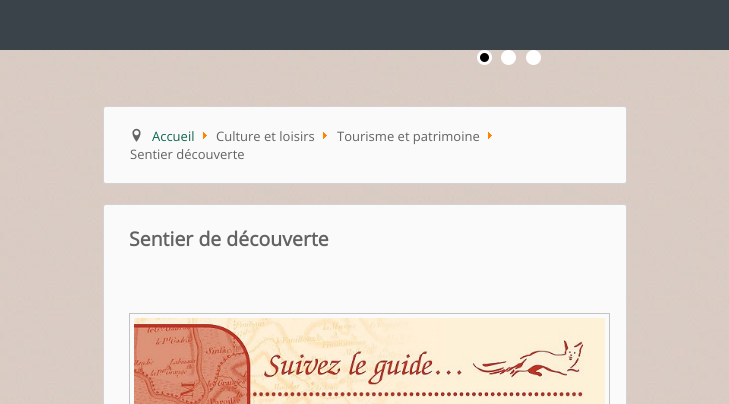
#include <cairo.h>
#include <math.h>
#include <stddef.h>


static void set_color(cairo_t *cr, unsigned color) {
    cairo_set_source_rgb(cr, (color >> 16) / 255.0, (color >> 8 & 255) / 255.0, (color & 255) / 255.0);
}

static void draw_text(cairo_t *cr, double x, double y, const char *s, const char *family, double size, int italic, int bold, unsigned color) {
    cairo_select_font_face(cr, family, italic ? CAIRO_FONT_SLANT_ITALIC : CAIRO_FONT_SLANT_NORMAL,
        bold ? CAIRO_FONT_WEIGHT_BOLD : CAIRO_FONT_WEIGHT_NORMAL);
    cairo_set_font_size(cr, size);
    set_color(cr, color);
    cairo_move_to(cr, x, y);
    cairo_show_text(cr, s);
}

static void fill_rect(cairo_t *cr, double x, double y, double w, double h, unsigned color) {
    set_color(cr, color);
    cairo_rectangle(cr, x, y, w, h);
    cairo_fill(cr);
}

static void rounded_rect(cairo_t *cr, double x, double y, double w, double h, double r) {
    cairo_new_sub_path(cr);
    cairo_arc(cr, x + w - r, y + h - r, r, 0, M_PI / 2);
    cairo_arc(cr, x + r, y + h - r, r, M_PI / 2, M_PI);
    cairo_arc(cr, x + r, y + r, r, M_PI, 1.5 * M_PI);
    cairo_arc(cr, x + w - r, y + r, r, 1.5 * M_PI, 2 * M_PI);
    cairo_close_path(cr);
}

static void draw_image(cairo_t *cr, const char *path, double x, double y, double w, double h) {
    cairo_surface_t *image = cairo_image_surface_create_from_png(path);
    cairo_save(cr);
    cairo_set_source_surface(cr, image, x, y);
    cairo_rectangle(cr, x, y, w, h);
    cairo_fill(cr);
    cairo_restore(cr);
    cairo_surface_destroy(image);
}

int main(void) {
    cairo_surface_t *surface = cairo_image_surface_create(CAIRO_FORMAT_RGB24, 729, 404);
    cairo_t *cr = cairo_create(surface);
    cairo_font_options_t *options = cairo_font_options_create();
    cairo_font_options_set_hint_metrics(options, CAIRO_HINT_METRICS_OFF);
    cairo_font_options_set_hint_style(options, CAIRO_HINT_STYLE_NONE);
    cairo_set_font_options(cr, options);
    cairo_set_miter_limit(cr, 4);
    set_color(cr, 0xFFFFFF);
    cairo_paint(cr);
    draw_image(cr, "assets/img1.png", 0, 50, 729, 354);
    fill_rect(cr, 0, 0, 729, 50, 0x3A434A);
    set_color(cr, 0x000000);
    cairo_arc(cr, 484.5, 57.5, 6, 0, 2 * M_PI);
    cairo_fill_preserve(cr);
    set_color(cr, 0xFFFFFF);
    cairo_set_line_width(cr, 3);
    cairo_stroke(cr);
    cairo_arc(cr, 508.5, 57.5, 6, 0, 2 * M_PI);
    cairo_fill_preserve(cr);
    cairo_stroke(cr);
    cairo_arc(cr, 533.5, 57.5, 6, 0, 2 * M_PI);
    cairo_fill_preserve(cr);
    cairo_stroke(cr);
    set_color(cr, 0xFAFAFA);
    rounded_rect(cr, 103.5, 106.5, 523, 77, 2.5);
    cairo_fill_preserve(cr);
    set_color(cr, 0xD3D1D1);
    cairo_set_line_width(cr, 1);
    cairo_stroke(cr);
    draw_image(cr, "assets/img2.png", 132, 128, 9, 14);
    draw_text(cr, 152, 141, "Accueil", "Open Sans", 13, 0, 0, 0x0F6550);
    draw_image(cr, "assets/img3.png", 203, 132, 4, 7);
    draw_text(cr, 216, 141, "Culture et loisirs", "Open Sans", 13, 0, 0, 0x626262);
    draw_image(cr, "assets/img3.png", 323, 132, 4, 7);
    draw_text(cr, 337, 141, "Tourisme et patrimoine", "Open Sans", 13, 0, 0, 0x626262);
    draw_image(cr, "assets/img3.png", 488, 132, 4, 7);
    draw_text(cr, 130, 159, "Sentier découverte", "Open Sans", 13, 0, 0, 0x626262);
    set_color(cr, 0xFAFAFA);
    rounded_rect(cr, 103.5, 204.5, 523, 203, 2.5);
    cairo_fill_preserve(cr);
    set_color(cr, 0xD3D1D1);
    cairo_stroke(cr);
    draw_text(cr, 129, 246, "Sentier de découverte", "Open Sans", 19.5, 0, 1, 0x626262);
    cairo_rectangle(cr, 129.5, 313.5, 480, 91);
    set_color(cr, 0xC3C3C3);
    cairo_stroke(cr);
    draw_image(cr, "assets/img4.png", 134, 318, 471, 86);
    cairo_surface_write_to_png(surface, "output.png");
    cairo_font_options_destroy(options);
    cairo_destroy(cr);
    cairo_surface_destroy(surface);
    return 0;
}
